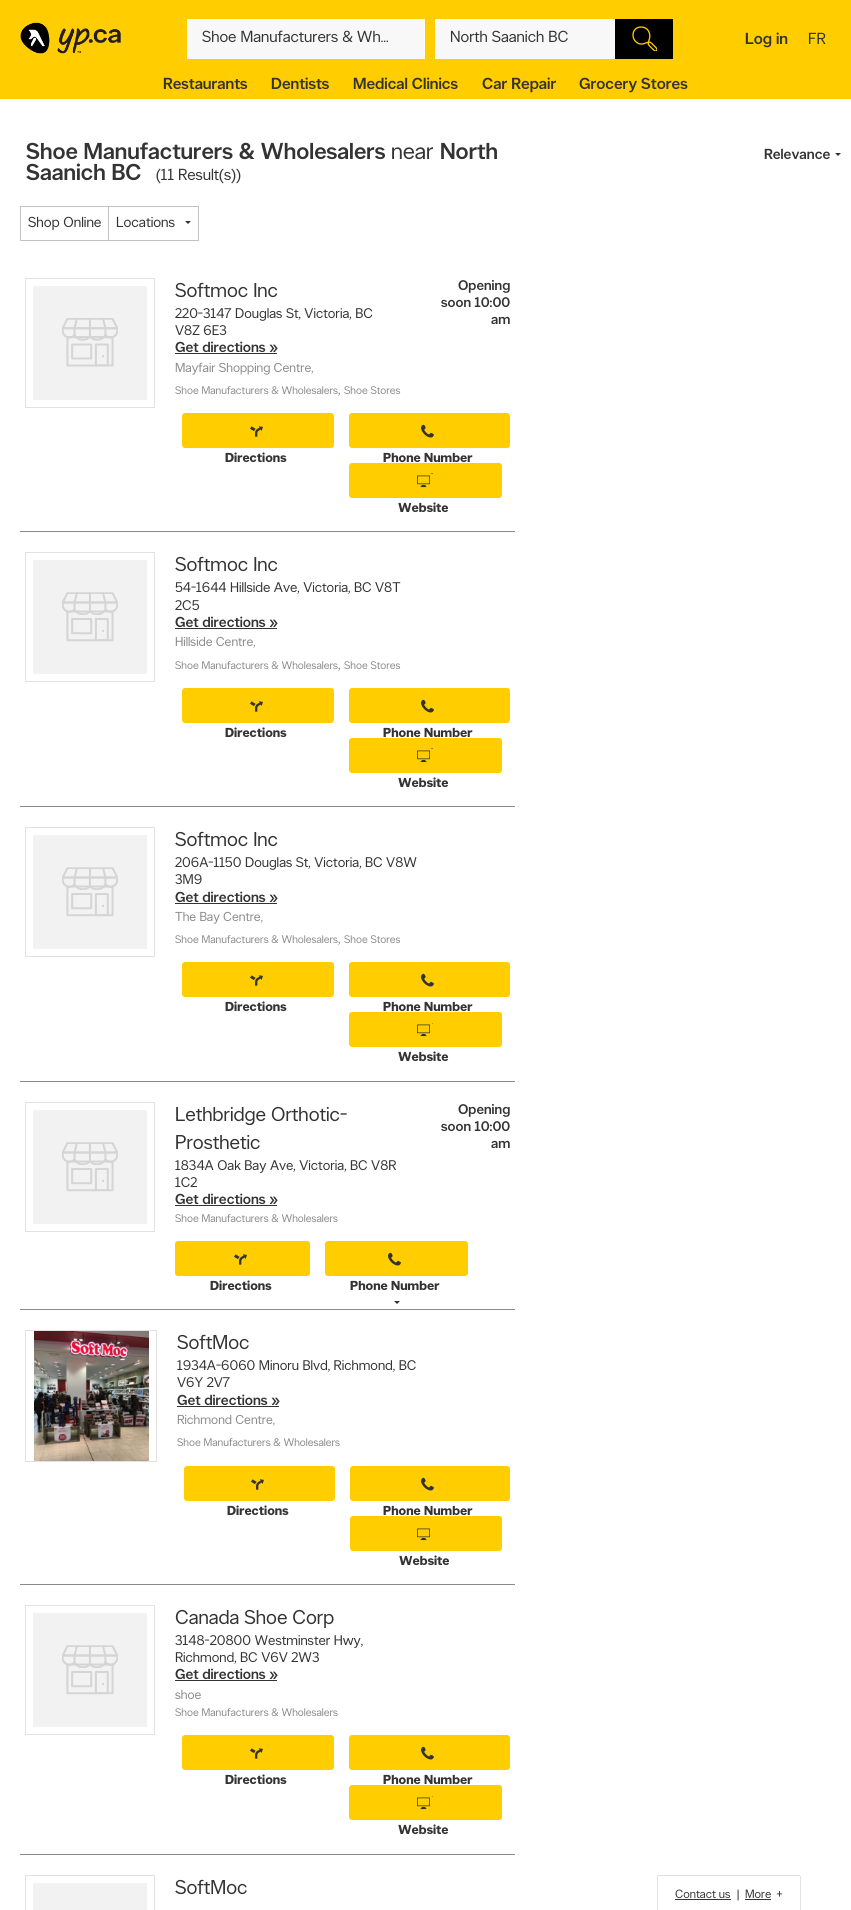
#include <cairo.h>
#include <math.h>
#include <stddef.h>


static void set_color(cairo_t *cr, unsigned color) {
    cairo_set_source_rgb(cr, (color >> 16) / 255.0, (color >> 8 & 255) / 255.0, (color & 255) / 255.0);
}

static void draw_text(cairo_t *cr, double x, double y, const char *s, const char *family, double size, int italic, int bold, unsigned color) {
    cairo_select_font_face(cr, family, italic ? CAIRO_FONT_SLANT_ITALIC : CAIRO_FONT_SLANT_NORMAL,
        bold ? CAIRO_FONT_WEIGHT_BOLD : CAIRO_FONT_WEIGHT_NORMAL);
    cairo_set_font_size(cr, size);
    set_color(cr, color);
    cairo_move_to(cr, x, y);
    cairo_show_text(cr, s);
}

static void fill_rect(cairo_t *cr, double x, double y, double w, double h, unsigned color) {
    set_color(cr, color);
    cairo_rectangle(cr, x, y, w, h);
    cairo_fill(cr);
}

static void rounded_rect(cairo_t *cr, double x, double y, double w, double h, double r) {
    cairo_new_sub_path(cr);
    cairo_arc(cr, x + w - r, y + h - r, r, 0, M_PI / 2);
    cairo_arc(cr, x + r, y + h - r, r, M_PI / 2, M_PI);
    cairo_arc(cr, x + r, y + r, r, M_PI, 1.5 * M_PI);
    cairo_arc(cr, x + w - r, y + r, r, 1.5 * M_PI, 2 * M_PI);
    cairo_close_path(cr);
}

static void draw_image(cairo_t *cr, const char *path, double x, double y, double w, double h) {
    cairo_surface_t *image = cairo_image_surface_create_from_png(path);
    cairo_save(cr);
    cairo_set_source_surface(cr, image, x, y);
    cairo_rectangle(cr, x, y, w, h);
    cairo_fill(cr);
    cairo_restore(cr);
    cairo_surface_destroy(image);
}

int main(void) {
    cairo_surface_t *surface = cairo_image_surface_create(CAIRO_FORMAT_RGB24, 851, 1910);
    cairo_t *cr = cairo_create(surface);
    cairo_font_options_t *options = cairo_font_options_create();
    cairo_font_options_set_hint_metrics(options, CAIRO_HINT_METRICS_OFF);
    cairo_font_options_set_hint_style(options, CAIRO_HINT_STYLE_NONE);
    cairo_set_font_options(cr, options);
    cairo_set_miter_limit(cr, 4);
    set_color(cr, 0xFFFFFF);
    cairo_paint(cr);
    fill_rect(cr, 0, 0, 851, 99, 0xFFCD00);
    draw_image(cr, "assets/img1.png", 20, 22, 101, 32);
    fill_rect(cr, 187, 19, 238, 40, 0xF8F8F8);
    draw_text(cr, 202, 42, "Shoe Manufacturers & Wh…", "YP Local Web", 16, 0, 0, 0x333333);
    fill_rect(cr, 435, 19, 180, 40, 0xF8F8F8);
    draw_text(cr, 450, 42, "North Saanich BC", "YP Local Web", 16, 0, 0, 0x333333);
    fill_rect(cr, 615, 19, 58, 40, 0x000000);
    draw_image(cr, "assets/img2.png", 632, 26, 25, 25);
    draw_text(cr, 745, 44, "Log in", "YP Local Web Medium", 16, 0, 0, 0x333333);
    draw_text(cr, 808, 44, "FR", "YP Local Web", 16, 0, 0, 0x333333);
    draw_text(cr, 163, 89, "Restaurants", "YP Local Web Medium", 16, 0, 0, 0x333333);
    draw_text(cr, 271, 89, "Dentists", "YP Local Web Medium", 16, 0, 0, 0x333333);
    draw_text(cr, 353, 89, "Medical Clinics", "YP Local Web Medium", 16, 0, 0, 0x333333);
    draw_text(cr, 482, 89, "Car Repair", "YP Local Web Medium", 16, 0, 0, 0x333333);
    draw_text(cr, 579, 89, "Grocery Stores", "YP Local Web Medium", 16, 0, 0, 0x333333);
    draw_text(cr, 26, 159, "Shoe Manufacturers & Wholesalers", "YP Local Web Medium", 23, 0, 0, 0x333333);
    draw_text(cr, 391, 159, "near", "YP Local Web", 23, 0, 0, 0x333333);
    draw_text(cr, 440, 159, "North", "YP Local Web Medium", 23, 0, 0, 0x333333);
    draw_text(cr, 26, 180, "Saanich BC", "YP Local Web Medium", 23, 0, 0, 0x333333);
    draw_text(cr, 156, 180, "(11 Result(s))", "YP Local Web", 16, 0, 0, 0x333333);
    draw_text(cr, 764, 159, "Relevance", "YP Local Web Medium", 14.5, 0, 0, 0x333333);
    cairo_new_path(cr);
    cairo_move_to(cr, 835, 153);
    cairo_line_to(cr, 841, 153);
    cairo_line_to(cr, 838, 156);
    cairo_close_path(cr);
    cairo_fill(cr);
    cairo_rectangle(cr, 20.5, 206.5, 88, 34);
    set_color(cr, 0xC3C3C3);
    cairo_set_line_width(cr, 1);
    cairo_stroke(cr);
    draw_text(cr, 28, 227, "Shop Online", "YP Local Web", 14.5, 0, 0, 0x333333);
    cairo_rectangle(cr, 108.5, 206.5, 90, 34);
    set_color(cr, 0xC3C3C3);
    cairo_stroke(cr);
    draw_text(cr, 116, 227, "Locations", "YP Local Web", 14.5, 0, 0, 0x333333);
    cairo_new_path(cr);
    cairo_move_to(cr, 185, 221);
    cairo_line_to(cr, 191, 221);
    cairo_line_to(cr, 188, 224);
    cairo_close_path(cr);
    cairo_fill(cr);
    fill_rect(cr, 20, 531, 495, 1, 0x8A8A8A);
    cairo_rectangle(cr, 25.5, 278.5, 129, 129);
    set_color(cr, 0xE2E2E2);
    cairo_stroke(cr);
    fill_rect(cr, 33, 286, 114, 114, 0xF2F2F2);
    draw_image(cr, "assets/img3.png", 62, 318, 56, 49);
    draw_text(cr, 175, 297, "Softmoc Inc", "YP Local Web", 20, 0, 0, 0x333333);
    draw_text(cr, 175, 318, "220-3147 Douglas St, Victoria, BC", "YP Local Web", 14, 0, 0, 0x333333);
    draw_text(cr, 175, 335, "V8Z 6E3", "YP Local Web", 14, 0, 0, 0x333333);
    draw_text(cr, 175, 352, "Get directions »", "YP Local Web Medium", 14.5, 0, 0, 0x333333);
    fill_rect(cr, 175, 353, 102, 1, 0x333333);
    draw_text(cr, 175, 372, "Mayfair Shopping Centre,", "YP Local Web", 13, 0, 0, 0x8A8A8A);
    draw_text(cr, 175, 394, "Shoe Manufacturers & Wholesalers", "YP Local Web", 11, 0, 0, 0x8A8A8A);
    draw_text(cr, 338, 394, ",", "YP Local Web", 14.5, 0, 0, 0x8A8A8A);
    draw_text(cr, 344, 394, "Shoe Stores", "YP Local Web", 11, 0, 0, 0x8A8A8A);
    draw_text(cr, 458, 290, "Opening", "YP Local Web Medium", 14, 0, 0, 0x333333);
    draw_text(cr, 441, 307, "soon 10:00", "YP Local Web Medium", 14, 0, 0, 0x333333);
    draw_text(cr, 491, 324, "am", "YP Local Web Medium", 14, 0, 0, 0x333333);
    set_color(cr, 0xFFCD00);
    rounded_rect(cr, 182, 413, 152, 35, 3);
    cairo_fill(cr);
    draw_image(cr, "assets/img4.png", 250, 426, 13, 11);
    draw_text(cr, 225, 462, "Directions", "YP Local Web", 13, 0, 1, 0x333333);
    set_color(cr, 0xFFCD00);
    rounded_rect(cr, 349, 413, 161, 35, 3);
    cairo_fill(cr);
    draw_image(cr, "assets/img5.png", 421, 424, 13, 14);
    draw_text(cr, 383, 462, "Phone Number", "YP Local Web", 13, 0, 1, 0x333333);
    set_color(cr, 0xFFCD00);
    rounded_rect(cr, 349, 463, 153, 35, 3);
    cairo_fill(cr);
    set_color(cr, 0x333333);
    cairo_new_path(cr);
    cairo_move_to(cr, 427, 473);
    cairo_line_to(cr, 433, 473);
    cairo_line_to(cr, 430, 476);
    cairo_close_path(cr);
    cairo_fill(cr);
    set_color(cr, 0xFFCD00);
    cairo_arc(cr, 423, 482, 12, 0, 2 * M_PI);
    cairo_fill(cr);
    draw_image(cr, "assets/img6.png", 417, 475, 13, 13);
    draw_text(cr, 398, 512, "Website", "YP Local Web", 13, 0, 1, 0x333333);
    fill_rect(cr, 20, 806, 495, 1, 0x8A8A8A);
    cairo_rectangle(cr, 25.5, 552.5, 129, 129);
    set_color(cr, 0xE2E2E2);
    cairo_stroke(cr);
    fill_rect(cr, 33, 560, 114, 114, 0xF2F2F2);
    draw_image(cr, "assets/img7.png", 62, 592, 56, 50);
    draw_text(cr, 175, 571, "Softmoc Inc", "YP Local Web", 20, 0, 0, 0x333333);
    draw_text(cr, 175, 592, "54-1644 Hillside Ave, Victoria, BC V8T", "YP Local Web", 14, 0, 0, 0x333333);
    draw_text(cr, 175, 610, "2C5", "YP Local Web", 14, 0, 0, 0x333333);
    draw_text(cr, 175, 627, "Get directions »", "YP Local Web Medium", 14.5, 0, 0, 0x333333);
    fill_rect(cr, 175, 628, 102, 1, 0x333333);
    draw_text(cr, 175, 646, "Hillside Centre,", "YP Local Web", 13, 0, 0, 0x8A8A8A);
    draw_text(cr, 175, 669, "Shoe Manufacturers & Wholesalers", "YP Local Web", 11, 0, 0, 0x8A8A8A);
    draw_text(cr, 338, 669, ",", "YP Local Web", 14.5, 0, 0, 0x8A8A8A);
    draw_text(cr, 344, 669, "Shoe Stores", "YP Local Web", 11, 0, 0, 0x8A8A8A);
    set_color(cr, 0xFFCD00);
    rounded_rect(cr, 182, 688, 152, 35, 3);
    cairo_fill(cr);
    draw_image(cr, "assets/img4.png", 250, 701, 13, 11);
    draw_text(cr, 225, 737, "Directions", "YP Local Web", 13, 0, 1, 0x333333);
    set_color(cr, 0xFFCD00);
    rounded_rect(cr, 349, 688, 161, 35, 3);
    cairo_fill(cr);
    draw_image(cr, "assets/img5.png", 421, 699, 13, 14);
    draw_text(cr, 383, 737, "Phone Number", "YP Local Web", 13, 0, 1, 0x333333);
    set_color(cr, 0xFFCD00);
    rounded_rect(cr, 349, 738, 153, 35, 3);
    cairo_fill(cr);
    set_color(cr, 0x333333);
    cairo_new_path(cr);
    cairo_move_to(cr, 427, 748);
    cairo_line_to(cr, 433, 748);
    cairo_line_to(cr, 430, 751);
    cairo_close_path(cr);
    cairo_fill(cr);
    set_color(cr, 0xFFCD00);
    cairo_arc(cr, 423, 757, 12, 0, 2 * M_PI);
    cairo_fill(cr);
    draw_image(cr, "assets/img6.png", 417, 750, 13, 13);
    draw_text(cr, 398, 787, "Website", "YP Local Web", 13, 0, 1, 0x333333);
    fill_rect(cr, 20, 1081, 495, 1, 0x8A8A8A);
    cairo_rectangle(cr, 25.5, 827.5, 129, 129);
    set_color(cr, 0xE2E2E2);
    cairo_stroke(cr);
    fill_rect(cr, 33, 835, 114, 114, 0xF2F2F2);
    draw_image(cr, "assets/img7.png", 62, 867, 56, 50);
    draw_text(cr, 175, 846, "Softmoc Inc", "YP Local Web", 20, 0, 0, 0x333333);
    draw_text(cr, 175, 867, "206A-1150 Douglas St, Victoria, BC V8W", "YP Local Web", 14, 0, 0, 0x333333);
    draw_text(cr, 175, 884, "3M9", "YP Local Web", 14, 0, 0, 0x333333);
    draw_text(cr, 175, 902, "Get directions »", "YP Local Web Medium", 14.5, 0, 0, 0x333333);
    fill_rect(cr, 175, 903, 102, 1, 0x333333);
    draw_text(cr, 175, 921, "The Bay Centre,", "YP Local Web", 13, 0, 0, 0x8A8A8A);
    draw_text(cr, 175, 943, "Shoe Manufacturers & Wholesalers", "YP Local Web", 11, 0, 0, 0x8A8A8A);
    draw_text(cr, 338, 943, ",", "YP Local Web", 14.5, 0, 0, 0x8A8A8A);
    draw_text(cr, 344, 943, "Shoe Stores", "YP Local Web", 11, 0, 0, 0x8A8A8A);
    set_color(cr, 0xFFCD00);
    rounded_rect(cr, 182, 962, 152, 35, 3);
    cairo_fill(cr);
    draw_image(cr, "assets/img4.png", 250, 975, 13, 11);
    draw_text(cr, 225, 1011, "Directions", "YP Local Web", 13, 0, 1, 0x333333);
    set_color(cr, 0xFFCD00);
    rounded_rect(cr, 349, 962, 161, 35, 3);
    cairo_fill(cr);
    draw_image(cr, "assets/img5.png", 421, 973, 13, 14);
    draw_text(cr, 383, 1011, "Phone Number", "YP Local Web", 13, 0, 1, 0x333333);
    set_color(cr, 0xFFCD00);
    rounded_rect(cr, 349, 1012, 153, 35, 3);
    cairo_fill(cr);
    set_color(cr, 0x333333);
    cairo_new_path(cr);
    cairo_move_to(cr, 427, 1023);
    cairo_line_to(cr, 433, 1023);
    cairo_line_to(cr, 430, 1026);
    cairo_close_path(cr);
    cairo_fill(cr);
    set_color(cr, 0xFFCD00);
    cairo_arc(cr, 423, 1031, 12, 0, 2 * M_PI);
    cairo_fill(cr);
    draw_image(cr, "assets/img6.png", 417, 1024, 13, 13);
    draw_text(cr, 398, 1061, "Website", "YP Local Web", 13, 0, 1, 0x333333);
    fill_rect(cr, 20, 1309, 495, 1, 0x8A8A8A);
    cairo_rectangle(cr, 25.5, 1102.5, 129, 129);
    set_color(cr, 0xE2E2E2);
    cairo_stroke(cr);
    fill_rect(cr, 33, 1110, 114, 114, 0xF2F2F2);
    draw_image(cr, "assets/img7.png", 62, 1142, 56, 50);
    draw_text(cr, 175, 1121, "Lethbridge Orthotic-", "YP Local Web", 20, 0, 0, 0x333333);
    draw_text(cr, 175, 1149, "Prosthetic", "YP Local Web", 20, 0, 0, 0x333333);
    draw_text(cr, 175, 1170, "1834A Oak Bay Ave, Victoria, BC V8R", "YP Local Web", 14, 0, 0, 0x333333);
    draw_text(cr, 175, 1187, "1C2", "YP Local Web", 14, 0, 0, 0x333333);
    draw_text(cr, 175, 1204, "Get directions »", "YP Local Web Medium", 14.5, 0, 0, 0x333333);
    fill_rect(cr, 175, 1205, 102, 1, 0x333333);
    draw_text(cr, 175, 1222, "Shoe Manufacturers & Wholesalers", "YP Local Web", 11, 0, 0, 0x8A8A8A);
    draw_text(cr, 458, 1114, "Opening", "YP Local Web Medium", 14, 0, 0, 0x333333);
    draw_text(cr, 441, 1131, "soon 10:00", "YP Local Web Medium", 14, 0, 0, 0x333333);
    draw_text(cr, 491, 1148, "am", "YP Local Web Medium", 14, 0, 0, 0x333333);
    set_color(cr, 0xFFCD00);
    rounded_rect(cr, 175, 1241, 135, 35, 3);
    cairo_fill(cr);
    draw_image(cr, "assets/img4.png", 234, 1254, 13, 11);
    draw_text(cr, 210, 1290, "Directions", "YP Local Web", 13, 0, 1, 0x333333);
    set_color(cr, 0xFFCD00);
    rounded_rect(cr, 325, 1241, 143, 35, 3);
    cairo_fill(cr);
    draw_image(cr, "assets/img5.png", 388, 1252, 13, 14);
    draw_text(cr, 350, 1290, "Phone Number", "YP Local Web", 13, 0, 1, 0x333333);
    cairo_new_path(cr);
    cairo_move_to(cr, 394, 1301);
    cairo_line_to(cr, 400, 1301);
    cairo_line_to(cr, 397, 1304);
    cairo_close_path(cr);
    cairo_fill(cr);
    fill_rect(cr, 20, 1584, 495, 1, 0x8A8A8A);
    cairo_rectangle(cr, 25.5, 1330.5, 131, 131);
    set_color(cr, 0xE2E2E2);
    cairo_stroke(cr);
    draw_image(cr, "assets/img8.png", 34, 1331, 115, 130);
    draw_text(cr, 177, 1349, "SoftMoc", "YP Local Web", 20, 0, 0, 0x333333);
    draw_text(cr, 177, 1370, "1934A-6060 Minoru Blvd, Richmond, BC", "YP Local Web", 14, 0, 0, 0x333333);
    draw_text(cr, 177, 1387, "V6Y 2V7", "YP Local Web", 14, 0, 0, 0x333333);
    draw_text(cr, 177, 1405, "Get directions »", "YP Local Web Medium", 14.5, 0, 0, 0x333333);
    fill_rect(cr, 177, 1406, 102, 1, 0x333333);
    draw_text(cr, 177, 1424, "Richmond Centre,", "YP Local Web", 13, 0, 0, 0x8A8A8A);
    draw_text(cr, 177, 1446, "Shoe Manufacturers & Wholesalers", "YP Local Web", 11, 0, 0, 0x8A8A8A);
    set_color(cr, 0xFFCD00);
    rounded_rect(cr, 184, 1466, 151, 35, 3);
    cairo_fill(cr);
    draw_image(cr, "assets/img4.png", 251, 1479, 13, 11);
    draw_text(cr, 227, 1515, "Directions", "YP Local Web", 13, 0, 1, 0x333333);
    set_color(cr, 0xFFCD00);
    rounded_rect(cr, 350, 1466, 160, 35, 3);
    cairo_fill(cr);
    draw_image(cr, "assets/img5.png", 421, 1477, 13, 14);
    draw_text(cr, 383, 1515, "Phone Number", "YP Local Web", 13, 0, 1, 0x333333);
    set_color(cr, 0xFFCD00);
    rounded_rect(cr, 350, 1516, 152, 35, 3);
    cairo_fill(cr);
    draw_image(cr, "assets/img6.png", 417, 1528, 13, 13);
    draw_text(cr, 399, 1565, "Website", "YP Local Web", 13, 0, 1, 0x333333);
    fill_rect(cr, 20, 1854, 495, 1, 0x8A8A8A);
    cairo_rectangle(cr, 25.5, 1605.5, 129, 129);
    set_color(cr, 0xE2E2E2);
    cairo_stroke(cr);
    fill_rect(cr, 33, 1613, 114, 114, 0xF2F2F2);
    draw_image(cr, "assets/img7.png", 62, 1645, 56, 50);
    draw_text(cr, 175, 1624, "Canada Shoe Corp", "YP Local Web", 20, 0, 0, 0x333333);
    draw_text(cr, 175, 1645, "3148-20800 Westminster Hwy,", "YP Local Web", 14, 0, 0, 0x333333);
    draw_text(cr, 175, 1662, "Richmond, BC V6V 2W3", "YP Local Web", 14, 0, 0, 0x333333);
    draw_text(cr, 175, 1679, "Get directions »", "YP Local Web Medium", 14.5, 0, 0, 0x333333);
    fill_rect(cr, 175, 1680, 102, 1, 0x333333);
    draw_text(cr, 175, 1699, "shoe", "YP Local Web", 13, 0, 0, 0x8A8A8A);
    draw_text(cr, 175, 1716, "Shoe Manufacturers & Wholesalers", "YP Local Web", 11, 0, 0, 0x8A8A8A);
    set_color(cr, 0xFFCD00);
    rounded_rect(cr, 182, 1735, 152, 35, 3);
    cairo_fill(cr);
    draw_image(cr, "assets/img4.png", 250, 1748, 13, 11);
    draw_text(cr, 225, 1784, "Directions", "YP Local Web", 13, 0, 1, 0x333333);
    set_color(cr, 0xFFCD00);
    rounded_rect(cr, 349, 1735, 161, 35, 3);
    cairo_fill(cr);
    draw_image(cr, "assets/img5.png", 421, 1746, 13, 14);
    draw_text(cr, 383, 1784, "Phone Number", "YP Local Web", 13, 0, 1, 0x333333);
    set_color(cr, 0xFFCD00);
    rounded_rect(cr, 349, 1785, 153, 35, 3);
    cairo_fill(cr);
    set_color(cr, 0x333333);
    cairo_new_path(cr);
    cairo_move_to(cr, 427, 1796);
    cairo_line_to(cr, 433, 1796);
    cairo_line_to(cr, 430, 1799);
    cairo_close_path(cr);
    cairo_fill(cr);
    set_color(cr, 0xFFCD00);
    cairo_arc(cr, 423, 1804, 12, 0, 2 * M_PI);
    cairo_fill(cr);
    draw_image(cr, "assets/img6.png", 417, 1797, 13, 13);
    draw_text(cr, 398, 1834, "Website", "YP Local Web", 13, 0, 1, 0x333333);
    cairo_rectangle(cr, 25.5, 1875.5, 129, 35);
    set_color(cr, 0xE2E2E2);
    cairo_stroke(cr);
    fill_rect(cr, 33, 1883, 114, 27, 0xF2F2F2);
    draw_text(cr, 175, 1894, "SoftMoc", "YP Local Web", 20, 0, 0, 0x333333);
    fill_rect(cr, 658, 1875, 142, 1, 0xE2E2E2);
    fill_rect(cr, 800, 1876, 1, 34, 0xE2E2E2);
    fill_rect(cr, 657, 1876, 1, 34, 0xE2E2E2);
    draw_text(cr, 675, 1898, "Contact us", "YP Local Web", 12, 0, 0, 0x333333);
    fill_rect(cr, 675, 1899, 56, 1, 0x333333);
    draw_text(cr, 737, 1898, "|", "YP Local Web", 12, 0, 0, 0x333333);
    draw_text(cr, 745, 1898, "More", "YP Local Web", 12, 0, 0, 0x333333);
    fill_rect(cr, 745, 1899, 26, 1, 0x333333);
    draw_text(cr, 776, 1898, "+", "YP Local Web", 12, 0, 0, 0x333333);
    cairo_surface_write_to_png(surface, "output.png");
    cairo_font_options_destroy(options);
    cairo_destroy(cr);
    cairo_surface_destroy(surface);
    return 0;
}
